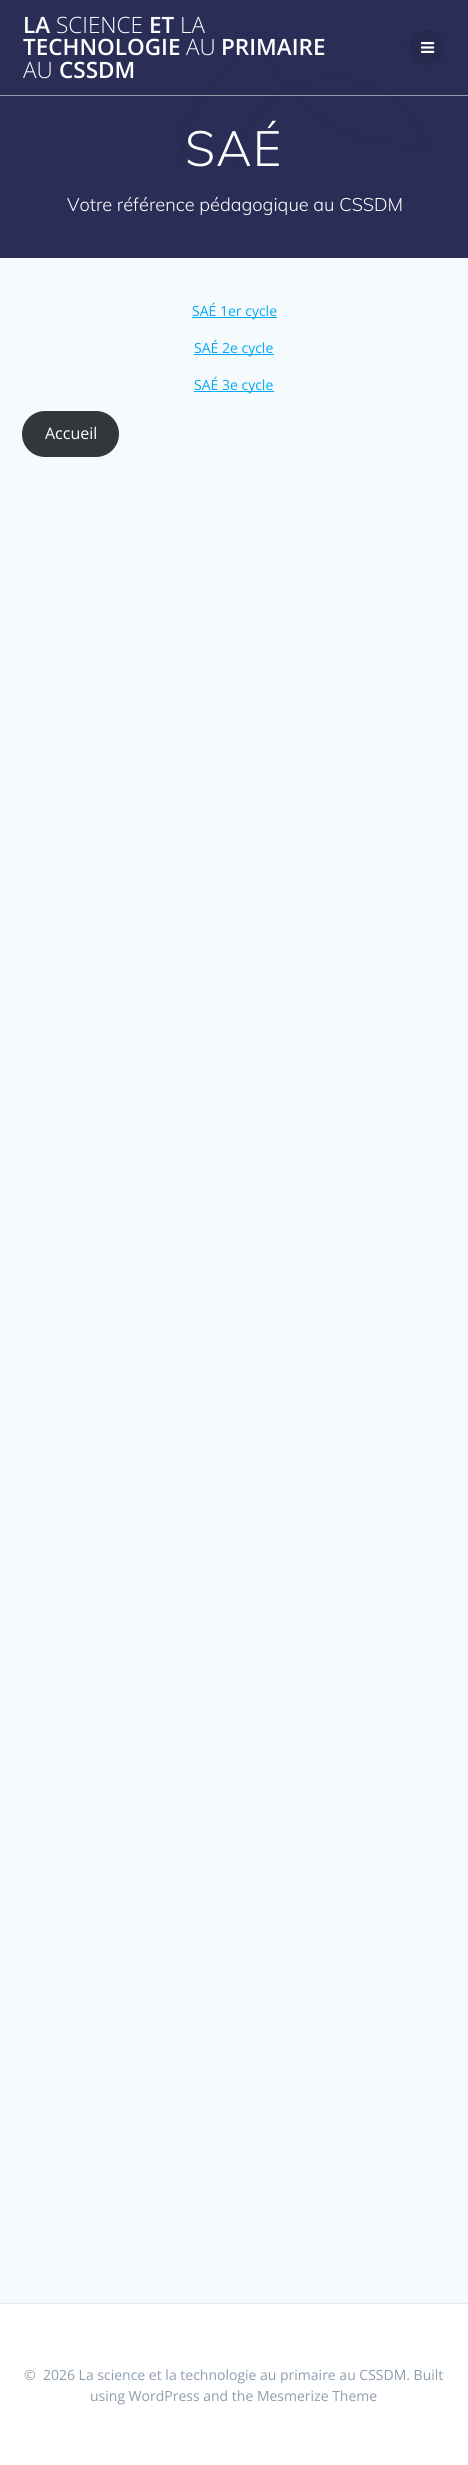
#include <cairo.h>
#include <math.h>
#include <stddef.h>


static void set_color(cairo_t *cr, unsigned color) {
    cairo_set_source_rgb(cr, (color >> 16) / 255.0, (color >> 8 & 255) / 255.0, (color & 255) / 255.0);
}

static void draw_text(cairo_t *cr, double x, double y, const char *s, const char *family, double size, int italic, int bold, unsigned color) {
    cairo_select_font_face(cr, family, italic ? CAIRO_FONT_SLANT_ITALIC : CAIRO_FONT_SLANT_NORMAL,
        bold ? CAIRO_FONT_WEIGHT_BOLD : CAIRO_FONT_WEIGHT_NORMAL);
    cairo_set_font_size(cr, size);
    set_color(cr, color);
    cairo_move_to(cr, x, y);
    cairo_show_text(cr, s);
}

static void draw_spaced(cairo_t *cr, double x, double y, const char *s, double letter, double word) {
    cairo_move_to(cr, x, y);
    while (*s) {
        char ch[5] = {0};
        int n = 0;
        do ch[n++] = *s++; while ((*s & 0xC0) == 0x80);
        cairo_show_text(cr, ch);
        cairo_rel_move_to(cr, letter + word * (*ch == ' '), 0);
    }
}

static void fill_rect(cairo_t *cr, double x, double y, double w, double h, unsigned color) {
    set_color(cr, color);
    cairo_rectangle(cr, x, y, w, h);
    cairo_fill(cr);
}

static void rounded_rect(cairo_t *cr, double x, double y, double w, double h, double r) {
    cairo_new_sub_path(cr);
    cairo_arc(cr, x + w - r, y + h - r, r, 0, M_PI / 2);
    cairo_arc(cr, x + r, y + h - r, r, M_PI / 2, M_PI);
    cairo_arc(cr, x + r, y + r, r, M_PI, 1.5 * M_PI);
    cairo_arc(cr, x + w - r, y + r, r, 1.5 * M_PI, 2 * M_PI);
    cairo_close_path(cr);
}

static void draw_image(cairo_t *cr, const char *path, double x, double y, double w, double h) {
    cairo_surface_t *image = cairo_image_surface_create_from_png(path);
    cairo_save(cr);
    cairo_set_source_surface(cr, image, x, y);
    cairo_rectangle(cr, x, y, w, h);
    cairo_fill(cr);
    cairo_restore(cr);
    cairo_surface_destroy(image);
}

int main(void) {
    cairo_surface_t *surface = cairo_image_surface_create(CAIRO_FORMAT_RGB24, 468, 2465);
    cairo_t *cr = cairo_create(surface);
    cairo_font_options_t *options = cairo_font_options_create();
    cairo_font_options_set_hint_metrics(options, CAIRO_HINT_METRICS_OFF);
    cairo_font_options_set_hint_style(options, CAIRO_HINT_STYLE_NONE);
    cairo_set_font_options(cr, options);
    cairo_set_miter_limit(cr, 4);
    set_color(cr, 0xFFFFFF);
    cairo_paint(cr);
    fill_rect(cr, 0, 0, 468, 258, 0x2A2E57);
    draw_image(cr, "assets/img2.png", 179, 37, 249, 130);
    cairo_set_source_rgba(cr, 1, 1, 1, 0.5);
    cairo_rectangle(cr, 0, 95, 468, 1);
    cairo_fill(cr);
    draw_text(cr, 23, 33, "LA", "Open Sans SemiBold", 22.5, 0, 0, 0xFFFFFF);
    draw_text(cr, 56, 33, "SCIENCE", "Open Sans Light", 22.5, 0, 0, 0xFFFFFF);
    draw_text(cr, 149, 33, "ET", "Open Sans SemiBold", 22.5, 0, 0, 0xFFFFFF);
    draw_text(cr, 180, 33, "LA", "Open Sans Light", 22.5, 0, 0, 0xFFFFFF);
    draw_text(cr, 23, 55, "TECHNOLOGIE", "Open Sans SemiBold", 22.5, 0, 0, 0xFFFFFF);
    draw_text(cr, 186, 55, "AU", "Open Sans Light", 22.5, 0, 0, 0xFFFFFF);
    draw_text(cr, 221, 55, "PRIMAIRE", "Open Sans SemiBold", 22.5, 0, 0, 0xFFFFFF);
    draw_text(cr, 23, 78, "AU", "Open Sans Light", 22.5, 0, 0, 0xFFFFFF);
    draw_text(cr, 59, 78, "CSSDM", "Open Sans SemiBold", 22.5, 0, 0, 0xFFFFFF);
    cairo_set_source_rgba(cr, 0, 0, 0, 0.1);
    cairo_new_path(cr);
    cairo_arc(cr, 427.5, 47.5, 17.5, 0, 2 * M_PI);
    cairo_fill(cr);
    draw_image(cr, "assets/img1.png", 421, 42, 14, 11);
    cairo_select_font_face(cr, "Muli Light", CAIRO_FONT_SLANT_NORMAL, CAIRO_FONT_WEIGHT_NORMAL);
    cairo_set_font_size(cr, 49);
    set_color(cr, 0xFFFFFF);
    draw_spaced(cr, 185, 166, "SAÉ", 1, 0);
    draw_text(cr, 67, 211, "Votre référence pédagogique au CSSDM", "Muli Light", 18.25, 0, 0, 0xFFFFFF);
    fill_rect(cr, 0, 258, 468, 2045, 0xF5FAFD);
    fill_rect(cr, 192, 317, 85, 1, 0x03A9F4);
    draw_text(cr, 192, 316, "SAÉ 1er cycle", "Open Sans", 14, 0, 0, 0x03A9F4);
    fill_rect(cr, 194, 354, 80, 1, 0x03A9F4);
    draw_text(cr, 194, 353, "SAÉ 2e cycle", "Open Sans", 14, 0, 0, 0x03A9F4);
    fill_rect(cr, 194, 391, 80, 1, 0x03A9F4);
    draw_text(cr, 194, 390, "SAÉ 3e cycle", "Open Sans", 14, 0, 0, 0x03A9F4);
    set_color(cr, 0x32373C);
    rounded_rect(cr, 22, 411, 97, 46, 23);
    cairo_fill(cr);
    draw_text(cr, 45, 439, "Accueil", "Open Sans", 16, 0, 0, 0xFFFFFF);
    fill_rect(cr, 0, 2303, 468, 1, 0xE8E8E8);
    draw_text(cr, 24, 2380, "©  2026 La science et la technologie au primaire au CSSDM. Built", "Open Sans", 14, 0, 0, 0x8E9DAE);
    draw_text(cr, 90, 2401, "using WordPress and the Mesmerize Theme", "Open Sans", 14, 0, 0, 0x8E9DAE);
    cairo_surface_write_to_png(surface, "output.png");
    cairo_font_options_destroy(options);
    cairo_destroy(cr);
    cairo_surface_destroy(surface);
    return 0;
}
